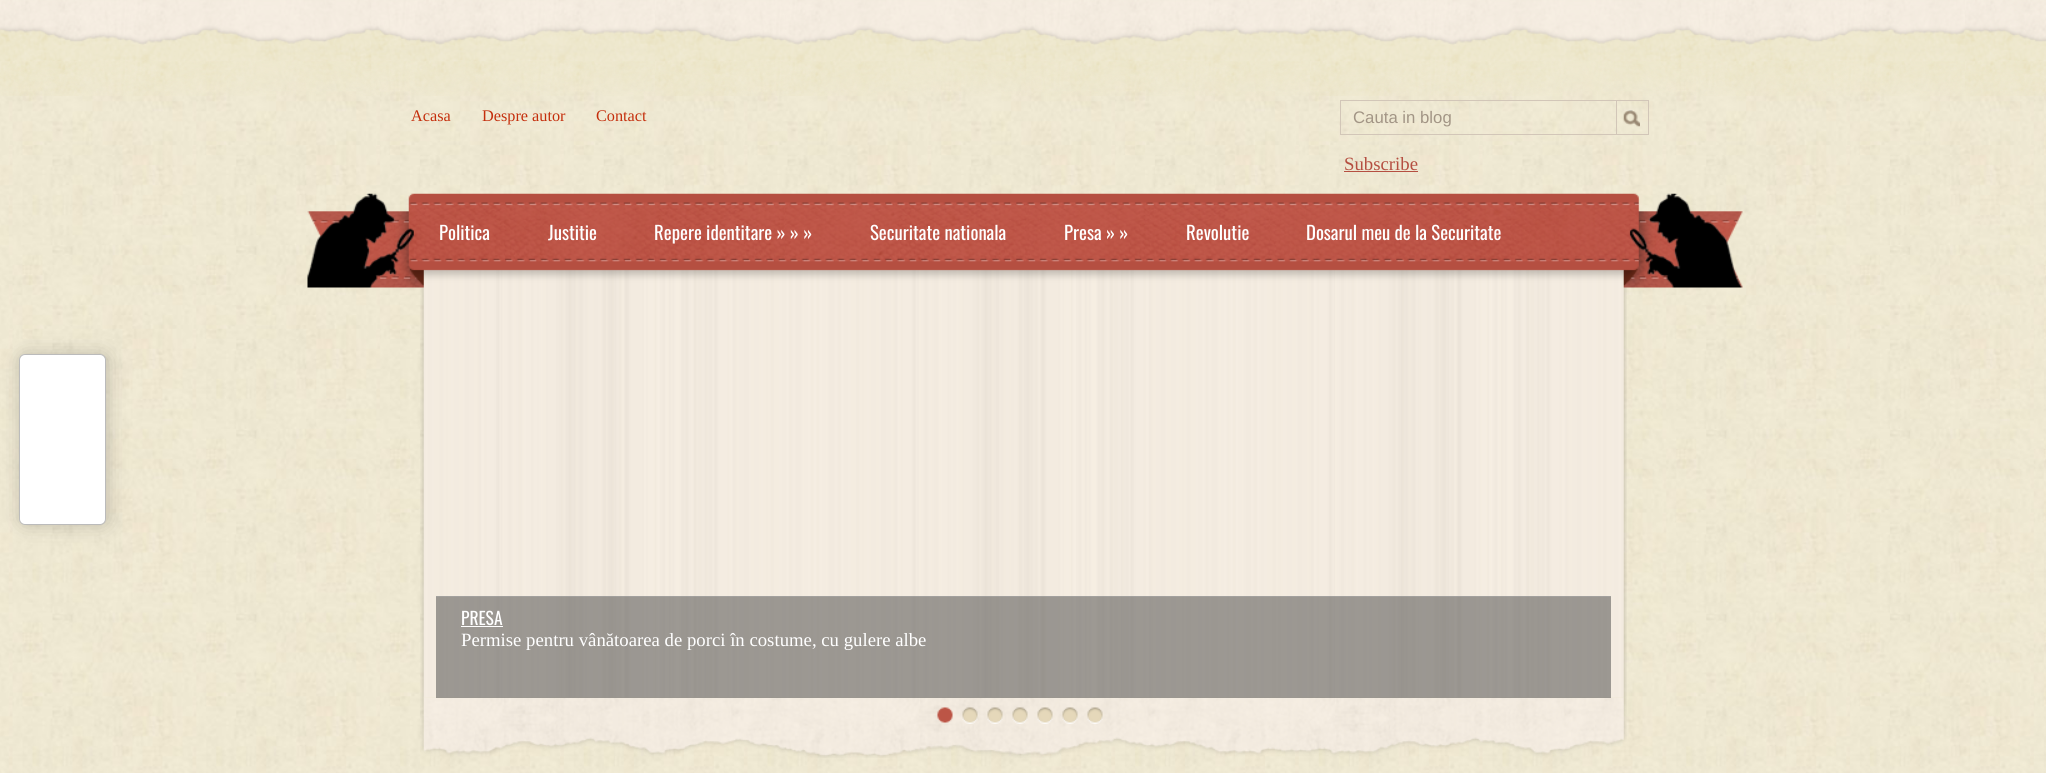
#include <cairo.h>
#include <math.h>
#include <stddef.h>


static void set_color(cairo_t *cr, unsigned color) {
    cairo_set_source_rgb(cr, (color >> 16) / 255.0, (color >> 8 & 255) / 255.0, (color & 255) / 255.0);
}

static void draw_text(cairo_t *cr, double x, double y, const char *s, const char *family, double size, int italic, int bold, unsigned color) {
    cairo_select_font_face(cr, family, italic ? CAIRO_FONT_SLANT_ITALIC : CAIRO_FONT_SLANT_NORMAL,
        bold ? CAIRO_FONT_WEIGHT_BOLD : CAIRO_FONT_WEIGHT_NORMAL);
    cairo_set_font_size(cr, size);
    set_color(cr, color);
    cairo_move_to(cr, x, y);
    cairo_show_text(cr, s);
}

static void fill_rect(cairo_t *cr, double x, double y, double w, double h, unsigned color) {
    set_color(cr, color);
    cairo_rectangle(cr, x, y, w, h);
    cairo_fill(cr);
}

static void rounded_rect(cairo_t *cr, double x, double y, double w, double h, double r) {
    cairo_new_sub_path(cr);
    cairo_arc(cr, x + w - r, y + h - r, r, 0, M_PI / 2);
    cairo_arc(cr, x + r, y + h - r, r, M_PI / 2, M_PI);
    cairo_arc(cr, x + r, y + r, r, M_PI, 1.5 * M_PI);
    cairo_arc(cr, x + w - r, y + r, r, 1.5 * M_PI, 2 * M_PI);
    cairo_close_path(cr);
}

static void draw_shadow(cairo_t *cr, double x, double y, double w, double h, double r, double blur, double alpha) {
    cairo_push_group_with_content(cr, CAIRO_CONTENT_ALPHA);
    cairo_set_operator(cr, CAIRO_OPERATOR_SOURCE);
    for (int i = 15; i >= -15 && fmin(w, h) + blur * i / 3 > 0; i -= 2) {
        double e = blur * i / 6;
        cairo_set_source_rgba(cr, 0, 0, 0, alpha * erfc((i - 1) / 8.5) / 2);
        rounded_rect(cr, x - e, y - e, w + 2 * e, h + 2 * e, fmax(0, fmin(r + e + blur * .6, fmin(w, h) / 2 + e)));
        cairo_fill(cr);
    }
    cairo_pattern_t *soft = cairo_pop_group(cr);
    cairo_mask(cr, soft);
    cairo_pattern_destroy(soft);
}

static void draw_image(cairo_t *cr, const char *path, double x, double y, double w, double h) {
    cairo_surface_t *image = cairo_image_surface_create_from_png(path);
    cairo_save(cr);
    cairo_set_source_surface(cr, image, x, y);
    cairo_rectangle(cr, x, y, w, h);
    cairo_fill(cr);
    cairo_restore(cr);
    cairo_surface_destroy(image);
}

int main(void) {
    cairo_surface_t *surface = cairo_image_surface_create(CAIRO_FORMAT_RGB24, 2046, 773);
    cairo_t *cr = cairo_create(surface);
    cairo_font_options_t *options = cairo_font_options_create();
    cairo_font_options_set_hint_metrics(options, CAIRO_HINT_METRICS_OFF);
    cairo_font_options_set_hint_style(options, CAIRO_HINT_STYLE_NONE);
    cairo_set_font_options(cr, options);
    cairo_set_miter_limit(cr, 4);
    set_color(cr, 0xFFFFFF);
    cairo_paint(cr);
    draw_image(cr, "assets/img1.png", 0, 0, 2046, 773);
    draw_image(cr, "assets/img2.png", 0, 0, 2046, 96);
    set_color(cr, 0x000000);
    draw_shadow(cr, 20, 354, 88, 171, 6, 9.5, 0.2);
    set_color(cr, 0xFFFFFF);
    rounded_rect(cr, 19.5, 354.5, 86, 170, 5.5);
    cairo_fill_preserve(cr);
    set_color(cr, 0xBBBBBB);
    cairo_set_line_width(cr, 1);
    cairo_stroke(cr);
    draw_text(cr, 411, 121, "Acasa", "Liberation Serif", 16.25, 0, 0, 0xC42E0C);
    draw_text(cr, 482, 121, "Despre autor", "Liberation Serif", 16.25, 0, 0, 0xC42E0C);
    draw_text(cr, 596, 121, "Contact", "Liberation Serif", 16.25, 0, 0, 0xC42E0C);
    fill_rect(cr, 1340, 100, 276, 1, 0xD2C6B8);
    fill_rect(cr, 1340, 134, 276, 1, 0xD2C6B8);
    fill_rect(cr, 1340, 100, 1, 35, 0xD2C6B8);
    draw_text(cr, 1353, 123, "Cauta in blog", "Liberation Sans", 16.75, 0, 0, 0xA29585);
    draw_image(cr, "assets/img3.png", 1623, 110, 17, 17);
    cairo_rectangle(cr, 1616.5, 100.5, 32, 34);
    set_color(cr, 0xD2C6B8);
    cairo_stroke(cr);
    draw_text(cr, 1344, 170, "Subscribe", "Liberation Serif", 18.75, 0, 0, 0xB54F41);
    fill_rect(cr, 1344, 171, 74, 1, 0xB54F41);
    draw_image(cr, "assets/img5.png", 420, 697, 1207, 61);
    draw_image(cr, "assets/img6.png", 420, 270, 1207, 428);
    draw_image(cr, "assets/img4.png", 307, 193, 1436, 95);
    draw_text(cr, 439, 240, "Politica", "Oswald", 18.75, 0, 0, 0xFFFFFF);
    draw_text(cr, 548, 240, "Justitie", "Oswald", 18.75, 0, 0, 0xFFFFFF);
    draw_text(cr, 654, 240, "Repere identitare » » »", "Oswald", 18.75, 0, 0, 0xFFFFFF);
    draw_text(cr, 870, 240, "Securitate nationala", "Oswald", 18.75, 0, 0, 0xFFFFFF);
    draw_text(cr, 1064, 240, "Presa » »", "Oswald", 18.75, 0, 0, 0xFFFFFF);
    draw_text(cr, 1186, 240, "Revolutie", "Oswald", 18.75, 0, 0, 0xFFFFFF);
    draw_text(cr, 1306, 240, "Dosarul meu de la Securitate", "Oswald", 18.75, 0, 0, 0xFFFFFF);
    cairo_set_source_rgba(cr, 0.267, 0.267, 0.267, 0.5);
    cairo_rectangle(cr, 436, 596, 1175, 102);
    cairo_fill(cr);
    cairo_set_source_rgba(cr, 0.667, 0.667, 0.667, 0.5);
    cairo_rectangle(cr, 436, 596, 1175, 1);
    cairo_fill(cr);
    draw_text(cr, 461, 625, "PRESA", "Oswald", 17.5, 0, 0, 0xFFFFFF);
    fill_rect(cr, 461, 626, 42, 1, 0xFFFFFF);
    draw_text(cr, 461, 646, "Permise pentru vânătoarea de porci în costume, cu gulere albe", "Liberation Serif", 18.75, 0, 0, 0xFFFFFF);
    draw_image(cr, "assets/img7.png", 937, 707, 16, 16);
    draw_image(cr, "assets/img8.png", 962, 707, 16, 17);
    draw_image(cr, "assets/img9.png", 987, 707, 16, 17);
    draw_image(cr, "assets/img10.png", 1012, 707, 16, 17);
    draw_image(cr, "assets/img11.png", 1037, 707, 16, 17);
    draw_image(cr, "assets/img12.png", 1062, 707, 16, 17);
    draw_image(cr, "assets/img13.png", 1087, 707, 16, 17);
    cairo_surface_write_to_png(surface, "output.png");
    cairo_font_options_destroy(options);
    cairo_destroy(cr);
    cairo_surface_destroy(surface);
    return 0;
}
